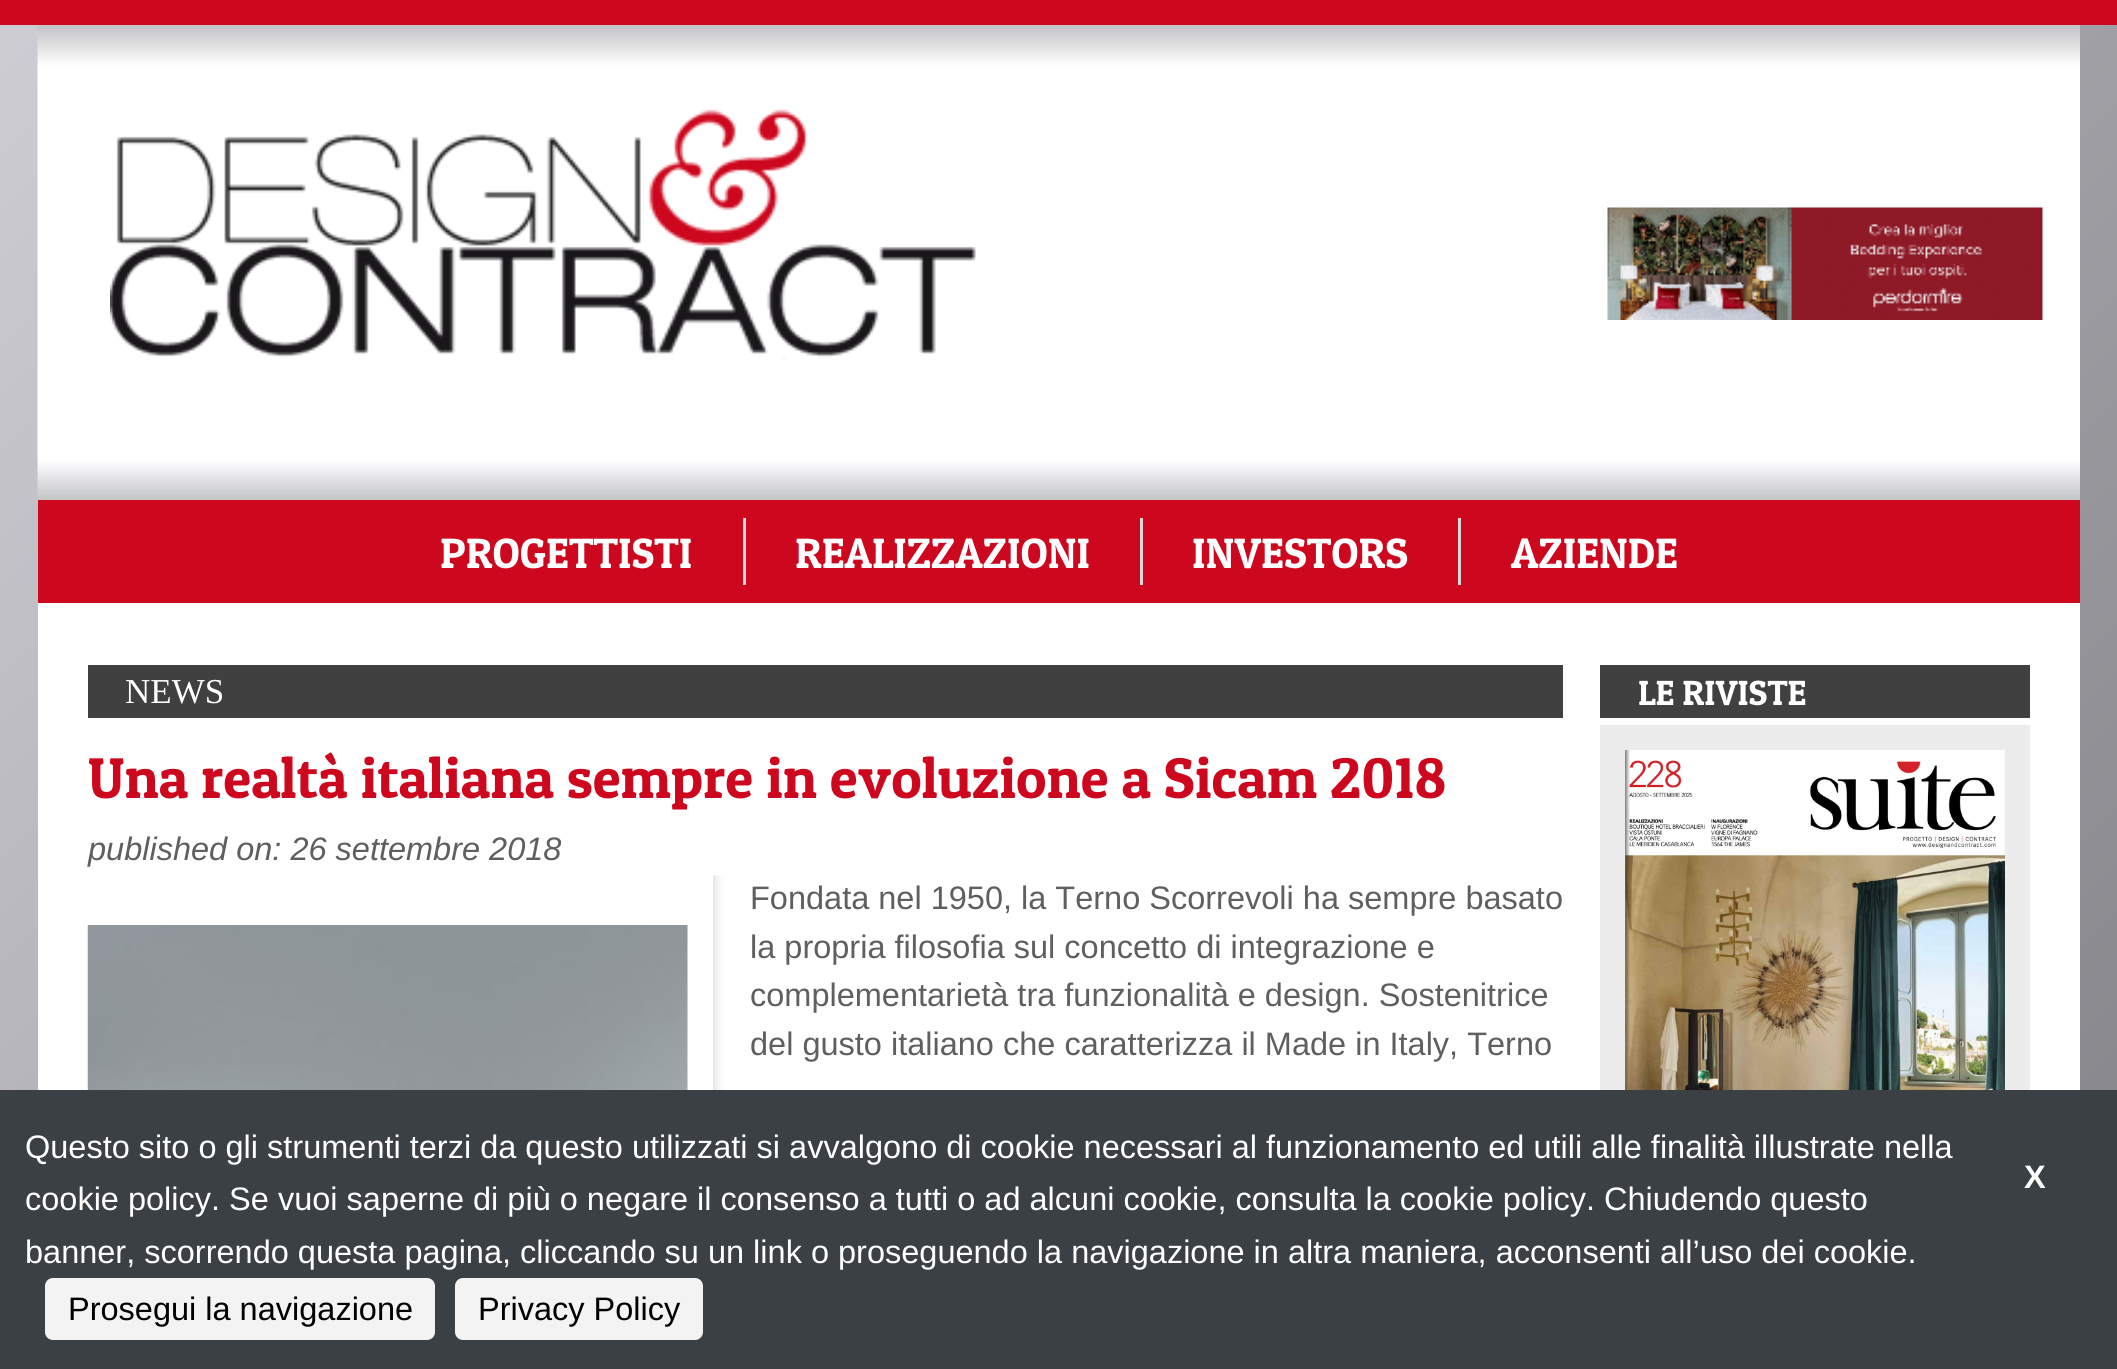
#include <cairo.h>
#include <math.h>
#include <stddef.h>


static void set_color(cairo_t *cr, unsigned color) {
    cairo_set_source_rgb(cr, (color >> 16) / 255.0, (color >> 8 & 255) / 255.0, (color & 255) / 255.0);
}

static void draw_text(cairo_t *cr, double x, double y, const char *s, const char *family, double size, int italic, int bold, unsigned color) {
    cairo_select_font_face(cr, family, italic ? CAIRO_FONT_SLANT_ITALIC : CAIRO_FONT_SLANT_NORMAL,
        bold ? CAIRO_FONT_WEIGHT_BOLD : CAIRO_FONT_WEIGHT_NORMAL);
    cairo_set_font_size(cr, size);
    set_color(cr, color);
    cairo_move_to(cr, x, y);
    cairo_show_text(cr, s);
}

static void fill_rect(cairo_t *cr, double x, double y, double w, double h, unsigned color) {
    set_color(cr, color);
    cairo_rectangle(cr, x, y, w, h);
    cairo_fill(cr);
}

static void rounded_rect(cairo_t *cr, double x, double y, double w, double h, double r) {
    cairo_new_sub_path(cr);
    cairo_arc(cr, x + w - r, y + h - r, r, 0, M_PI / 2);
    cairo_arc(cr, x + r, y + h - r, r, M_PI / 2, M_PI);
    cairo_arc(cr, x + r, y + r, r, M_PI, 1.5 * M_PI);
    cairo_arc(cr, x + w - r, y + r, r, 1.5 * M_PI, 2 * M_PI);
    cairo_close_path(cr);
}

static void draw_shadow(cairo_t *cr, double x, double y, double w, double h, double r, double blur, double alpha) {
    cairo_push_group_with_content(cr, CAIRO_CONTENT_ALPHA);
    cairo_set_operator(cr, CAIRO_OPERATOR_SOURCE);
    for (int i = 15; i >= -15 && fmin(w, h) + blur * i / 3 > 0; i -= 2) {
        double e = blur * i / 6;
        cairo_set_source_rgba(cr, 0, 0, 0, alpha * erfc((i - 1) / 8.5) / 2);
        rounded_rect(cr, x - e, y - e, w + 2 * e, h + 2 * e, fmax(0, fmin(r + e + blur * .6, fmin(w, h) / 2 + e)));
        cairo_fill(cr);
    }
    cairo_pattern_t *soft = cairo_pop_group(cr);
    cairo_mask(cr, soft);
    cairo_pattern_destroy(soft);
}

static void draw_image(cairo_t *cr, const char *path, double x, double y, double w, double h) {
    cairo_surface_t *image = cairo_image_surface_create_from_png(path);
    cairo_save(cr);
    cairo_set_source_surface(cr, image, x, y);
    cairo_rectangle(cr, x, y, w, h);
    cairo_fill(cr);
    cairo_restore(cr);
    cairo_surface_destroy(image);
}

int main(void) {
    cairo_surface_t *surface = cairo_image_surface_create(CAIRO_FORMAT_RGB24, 2117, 1369);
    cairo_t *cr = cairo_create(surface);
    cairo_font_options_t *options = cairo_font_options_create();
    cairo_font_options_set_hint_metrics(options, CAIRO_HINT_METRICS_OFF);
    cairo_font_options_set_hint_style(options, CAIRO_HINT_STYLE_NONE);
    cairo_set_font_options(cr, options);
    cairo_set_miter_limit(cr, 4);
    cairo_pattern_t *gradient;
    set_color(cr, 0xFFFFFF);
    cairo_paint(cr);
    gradient = cairo_pattern_create_linear(-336, 336, 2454, 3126);
    cairo_pattern_add_color_stop_rgba(gradient, 0, 0.808, 0.804, 0.827, 1);
    cairo_pattern_add_color_stop_rgba(gradient, 1, 0.341, 0.337, 0.357, 1);
    cairo_set_source(cr, gradient);
    cairo_pattern_destroy(gradient);
    cairo_rectangle(cr, 0, 25, 2117, 1065);
    cairo_fill(cr);
    fill_rect(cr, 0, 0, 2117, 25, 0xCC071E);
    fill_rect(cr, 38, 603, 2042, 487, 0xFFFFFF);
    draw_image(cr, "assets/img1.png", 37, 25, 2043, 475);
    draw_image(cr, "assets/img2.png", 110, 109, 866, 251);
    draw_image(cr, "assets/img3.png", 1607, 207, 436, 113);
    fill_rect(cr, 38, 500, 2042, 103, 0xCC071E);
    fill_rect(cr, 743, 518, 3, 67, 0xD8D8D8);
    draw_text(cr, 440, 568, "PROGETTISTI", "Patua One", 42.5, 0, 0, 0xFFFFFF);
    fill_rect(cr, 1140, 518, 3, 67, 0xD8D8D8);
    draw_text(cr, 795, 568, "REALIZZAZIONI", "Patua One", 42.5, 0, 0, 0xFFFFFF);
    fill_rect(cr, 1458, 518, 3, 67, 0xD8D8D8);
    draw_text(cr, 1192, 568, "INVESTORS", "Patua One", 42.5, 0, 0, 0xFFFFFF);
    draw_text(cr, 1511, 568, "AZIENDE", "Patua One", 42.5, 0, 0, 0xFFFFFF);
    fill_rect(cr, 88, 665, 1475, 53, 0x404041);
    draw_text(cr, 125, 703, "NEWS", "Liberation Serif", 35, 0, 0, 0xFFFFFF);
    draw_text(cr, 88, 798, "Una realtà italiana sempre in evoluzione a Sicam 2018", "Patua One", 57.5, 0, 0, 0xCC071E);
    draw_text(cr, 88, 860, "published on: 26 settembre 2018", "Liberation Sans", 32.5, 1, 0, 0x5F5F5F);
    cairo_save(cr);
    cairo_rectangle(cr, 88, 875, 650, 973);
    cairo_clip(cr);
    cairo_set_fill_rule(cr, CAIRO_FILL_RULE_EVEN_ODD);
    cairo_new_path(cr);
    cairo_move_to(cr, 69, 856);
    cairo_line_to(cr, 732, 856);
    cairo_line_to(cr, 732, 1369);
    cairo_line_to(cr, 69, 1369);
    cairo_close_path(cr);
    cairo_move_to(cr, 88, 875);
    cairo_line_to(cr, 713, 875);
    cairo_line_to(cr, 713, 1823);
    cairo_line_to(cr, 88, 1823);
    cairo_close_path(cr);
    cairo_clip(cr);
    set_color(cr, 0xCCCCCC);
    draw_shadow(cr, 88, 875, 625, 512, 0, 6, 1);
    cairo_restore(cr);
    draw_image(cr, "assets/img4.png", 87, 925, 601, 165);
    draw_text(cr, 750, 909, "Fondata nel 1950, la Terno Scorrevoli ha sempre basato", "Liberation Sans", 32.5, 0, 0, 0x5F5F5F);
    draw_text(cr, 750, 958, "la propria filosofia sul concetto di integrazione e", "Liberation Sans", 32.5, 0, 0, 0x5F5F5F);
    draw_text(cr, 750, 1006, "complementarietà tra funzionalità e design. Sostenitrice", "Liberation Sans", 32.5, 0, 0, 0x5F5F5F);
    draw_text(cr, 750, 1055, "del gusto italiano che caratterizza il Made in Italy, Terno", "Liberation Sans", 32.5, 0, 0, 0x5F5F5F);
    fill_rect(cr, 1600, 665, 430, 53, 0x404041);
    draw_text(cr, 1638, 705, "LE RIVISTE", "Patua One", 35, 0, 0, 0xFFFFFF);
    fill_rect(cr, 1600, 725, 430, 365, 0xECECED);
    draw_image(cr, "assets/img5.png", 1625, 750, 380, 340);
    fill_rect(cr, 0, 1090, 2117, 279, 0x3B4045);
    draw_text(cr, 25, 1158, "Questo sito o gli strumenti terzi da questo utilizzati si avvalgono di cookie necessari al funzionamento ed utili alle finalità illustrate nella", "Liberation Sans", 32.5, 0, 0, 0xFFFFFF);
    draw_text(cr, 2024, 1188, "X", "Liberation Sans", 32.5, 0, 1, 0xFFFFFF);
    draw_text(cr, 25, 1210, "cookie policy. Se vuoi saperne di più o negare il consenso a tutti o ad alcuni cookie, consulta la cookie policy. Chiudendo questo", "Liberation Sans", 32.5, 0, 0, 0xFFFFFF);
    draw_text(cr, 25, 1263, "banner, scorrendo questa pagina, cliccando su un link o proseguendo la navigazione in altra maniera, acconsenti all’uso dei cookie.", "Liberation Sans", 32.5, 0, 0, 0xFFFFFF);
    set_color(cr, 0xF3F3F3);
    rounded_rect(cr, 45, 1278, 390, 62, 8);
    cairo_fill(cr);
    draw_text(cr, 68, 1320, "Prosegui la navigazione", "Liberation Sans", 32.5, 0, 0, 0x000000);
    set_color(cr, 0xF3F3F3);
    rounded_rect(cr, 455, 1278, 248, 62, 8);
    cairo_fill(cr);
    draw_text(cr, 478, 1320, "Privacy Policy", "Liberation Sans", 32.5, 0, 0, 0x000000);
    cairo_surface_write_to_png(surface, "output.png");
    cairo_font_options_destroy(options);
    cairo_destroy(cr);
    cairo_surface_destroy(surface);
    return 0;
}
